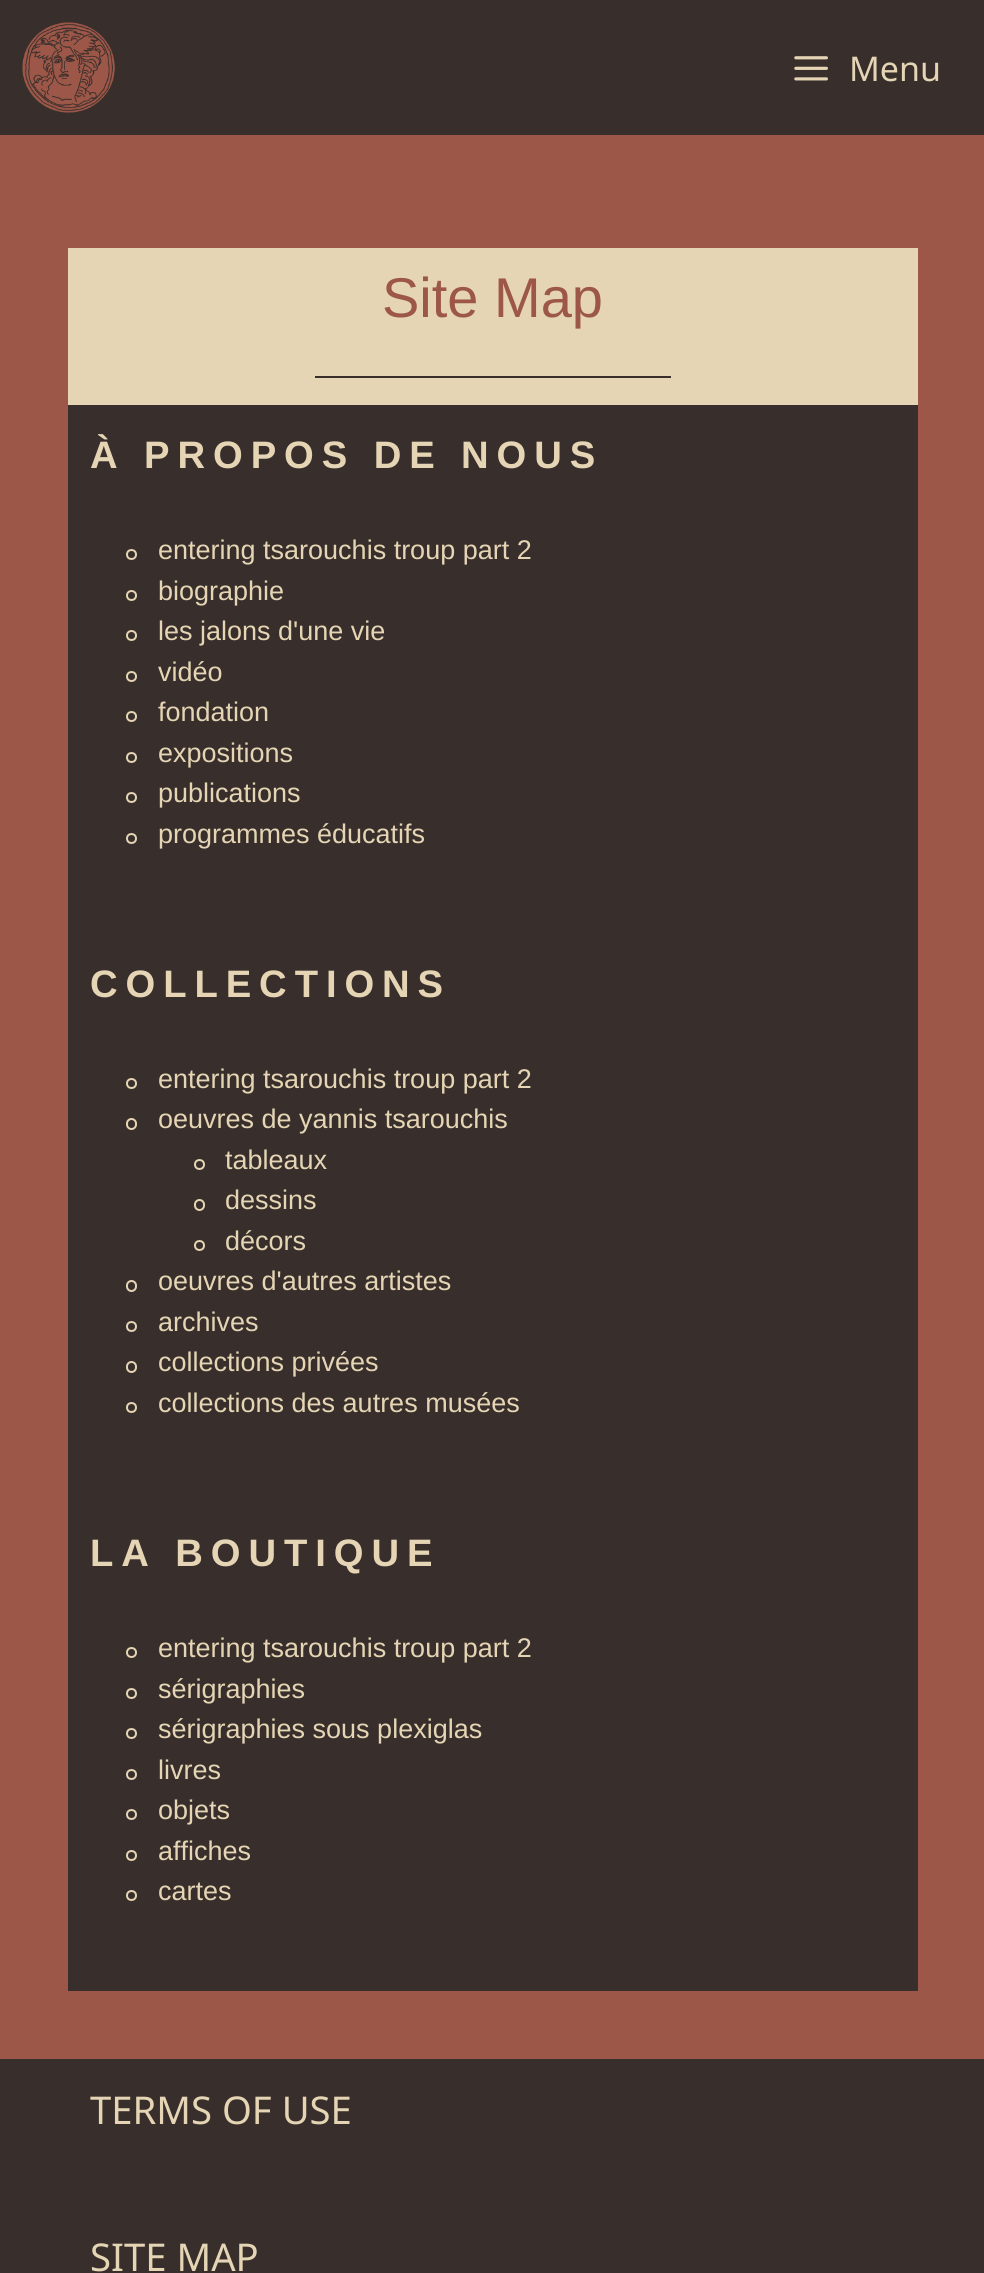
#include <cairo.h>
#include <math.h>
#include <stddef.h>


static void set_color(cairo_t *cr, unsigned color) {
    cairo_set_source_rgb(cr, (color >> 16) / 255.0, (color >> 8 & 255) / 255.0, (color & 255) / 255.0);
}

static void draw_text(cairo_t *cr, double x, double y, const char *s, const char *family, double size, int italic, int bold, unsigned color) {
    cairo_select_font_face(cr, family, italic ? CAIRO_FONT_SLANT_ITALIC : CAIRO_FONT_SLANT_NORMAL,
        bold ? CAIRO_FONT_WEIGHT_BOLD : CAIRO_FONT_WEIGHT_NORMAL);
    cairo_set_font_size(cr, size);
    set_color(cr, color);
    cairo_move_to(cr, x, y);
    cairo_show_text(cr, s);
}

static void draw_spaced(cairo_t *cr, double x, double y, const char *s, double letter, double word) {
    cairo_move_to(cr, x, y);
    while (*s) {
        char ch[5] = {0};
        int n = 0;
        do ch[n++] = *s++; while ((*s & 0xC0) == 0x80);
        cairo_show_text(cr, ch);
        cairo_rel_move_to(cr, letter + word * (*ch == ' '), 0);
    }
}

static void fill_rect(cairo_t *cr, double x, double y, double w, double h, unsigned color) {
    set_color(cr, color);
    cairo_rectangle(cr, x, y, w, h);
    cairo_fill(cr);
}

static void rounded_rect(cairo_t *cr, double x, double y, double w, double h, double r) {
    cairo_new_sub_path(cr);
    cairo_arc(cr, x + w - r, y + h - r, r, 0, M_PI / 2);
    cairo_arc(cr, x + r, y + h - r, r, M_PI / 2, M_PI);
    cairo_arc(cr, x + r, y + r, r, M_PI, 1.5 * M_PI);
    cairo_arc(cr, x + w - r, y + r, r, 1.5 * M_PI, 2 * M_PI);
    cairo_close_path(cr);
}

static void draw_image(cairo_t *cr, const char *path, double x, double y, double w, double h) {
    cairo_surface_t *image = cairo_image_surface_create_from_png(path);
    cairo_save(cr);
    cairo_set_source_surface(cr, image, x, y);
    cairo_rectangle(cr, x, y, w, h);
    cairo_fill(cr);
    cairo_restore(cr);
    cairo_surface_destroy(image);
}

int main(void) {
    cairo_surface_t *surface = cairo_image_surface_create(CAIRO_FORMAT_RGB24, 984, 2273);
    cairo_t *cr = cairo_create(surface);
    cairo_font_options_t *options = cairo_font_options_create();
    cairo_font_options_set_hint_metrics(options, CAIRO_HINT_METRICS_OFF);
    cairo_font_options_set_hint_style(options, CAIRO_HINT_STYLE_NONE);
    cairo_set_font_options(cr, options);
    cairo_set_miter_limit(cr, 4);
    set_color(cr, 0x9C5748);
    cairo_paint(cr);
    fill_rect(cr, 0, 0, 984, 135, 0x382F2C);
    draw_image(cr, "assets/img1.png", 22, 22, 93, 91);
    draw_image(cr, "assets/img2.png", 794, 56, 34, 25);
    draw_text(cr, 849, 81, "Menu", "Noto Sans", 34, 0, 0, 0xE5D5B4);
    fill_rect(cr, 68, 248, 850, 157, 0xE5D5B4);
    draw_text(cr, 382, 317, "Site Map", "Liberation Sans", 56, 0, 0, 0x9C5748);
    fill_rect(cr, 315, 376, 356, 2, 0x382F2C);
    fill_rect(cr, 68, 405, 850, 1586, 0x382F2C);
    cairo_select_font_face(cr, "Liberation Sans", CAIRO_FONT_SLANT_NORMAL, CAIRO_FONT_WEIGHT_BOLD);
    cairo_set_font_size(cr, 38.25);
    set_color(cr, 0xE5D5B4);
    draw_spaced(cr, 90, 468, "À PROPOS DE NOUS", 7.9, 0);
    cairo_new_path(cr);
    cairo_arc(cr, 131.5, 554.5, 4.5, 0, 2 * M_PI);
    cairo_stroke(cr);
    draw_text(cr, 158, 559, "entering tsarouchis troup part 2", "Liberation Sans", 27, 0, 0, 0xE5D5B4);
    cairo_new_path(cr);
    cairo_arc(cr, 131.5, 595.5, 4.5, 0, 2 * M_PI);
    cairo_stroke(cr);
    draw_text(cr, 158, 600, "biographie", "Liberation Sans", 27, 0, 0, 0xE5D5B4);
    cairo_new_path(cr);
    cairo_arc(cr, 131.5, 635.5, 4.5, 0, 2 * M_PI);
    cairo_stroke(cr);
    draw_text(cr, 158, 640, "les jalons d'une vie", "Liberation Sans", 27, 0, 0, 0xE5D5B4);
    cairo_new_path(cr);
    cairo_arc(cr, 131.5, 676.5, 4.5, 0, 2 * M_PI);
    cairo_stroke(cr);
    draw_text(cr, 158, 681, "vidéo", "Liberation Sans", 27, 0, 0, 0xE5D5B4);
    cairo_new_path(cr);
    cairo_arc(cr, 131.5, 716.5, 4.5, 0, 2 * M_PI);
    cairo_stroke(cr);
    draw_text(cr, 158, 721, "fondation", "Liberation Sans", 27, 0, 0, 0xE5D5B4);
    cairo_new_path(cr);
    cairo_arc(cr, 131.5, 757.5, 4.5, 0, 2 * M_PI);
    cairo_stroke(cr);
    draw_text(cr, 158, 762, "expositions", "Liberation Sans", 27, 0, 0, 0xE5D5B4);
    cairo_new_path(cr);
    cairo_arc(cr, 131.5, 797.5, 4.5, 0, 2 * M_PI);
    cairo_stroke(cr);
    draw_text(cr, 158, 802, "publications", "Liberation Sans", 27, 0, 0, 0xE5D5B4);
    cairo_new_path(cr);
    cairo_arc(cr, 131.5, 838.5, 4.5, 0, 2 * M_PI);
    cairo_stroke(cr);
    draw_text(cr, 158, 843, "programmes éducatifs", "Liberation Sans", 27, 0, 0, 0xE5D5B4);
    cairo_select_font_face(cr, "Liberation Sans", CAIRO_FONT_SLANT_NORMAL, CAIRO_FONT_WEIGHT_BOLD);
    cairo_set_font_size(cr, 38.25);
    draw_spaced(cr, 90, 997, "COLLECTIONS", 7.9, 0);
    cairo_new_path(cr);
    cairo_arc(cr, 131.5, 1083.5, 4.5, 0, 2 * M_PI);
    cairo_stroke(cr);
    draw_text(cr, 158, 1088, "entering tsarouchis troup part 2", "Liberation Sans", 27, 0, 0, 0xE5D5B4);
    rounded_rect(cr, 127, 1119, 9, 10, 4.5);
    cairo_stroke(cr);
    draw_text(cr, 158, 1128, "oeuvres de yannis tsarouchis", "Liberation Sans", 27, 0, 0, 0xE5D5B4);
    cairo_new_path(cr);
    cairo_arc(cr, 199.5, 1164.5, 4.5, 0, 2 * M_PI);
    cairo_stroke(cr);
    draw_text(cr, 225, 1169, "tableaux", "Liberation Sans", 27, 0, 0, 0xE5D5B4);
    rounded_rect(cr, 195, 1200, 9, 10, 4.5);
    cairo_stroke(cr);
    draw_text(cr, 225, 1209, "dessins", "Liberation Sans", 27, 0, 0, 0xE5D5B4);
    cairo_new_path(cr);
    cairo_arc(cr, 199.5, 1245.5, 4.5, 0, 2 * M_PI);
    cairo_stroke(cr);
    draw_text(cr, 225, 1250, "décors", "Liberation Sans", 27, 0, 0, 0xE5D5B4);
    rounded_rect(cr, 127, 1281, 9, 10, 4.5);
    cairo_stroke(cr);
    draw_text(cr, 158, 1290, "oeuvres d'autres artistes", "Liberation Sans", 27, 0, 0, 0xE5D5B4);
    cairo_new_path(cr);
    cairo_arc(cr, 131.5, 1326.5, 4.5, 0, 2 * M_PI);
    cairo_stroke(cr);
    draw_text(cr, 158, 1331, "archives", "Liberation Sans", 27, 0, 0, 0xE5D5B4);
    rounded_rect(cr, 127, 1362, 9, 10, 4.5);
    cairo_stroke(cr);
    draw_text(cr, 158, 1371, "collections privées", "Liberation Sans", 27, 0, 0, 0xE5D5B4);
    cairo_new_path(cr);
    cairo_arc(cr, 131.5, 1407.5, 4.5, 0, 2 * M_PI);
    cairo_stroke(cr);
    draw_text(cr, 158, 1412, "collections des autres musées", "Liberation Sans", 27, 0, 0, 0xE5D5B4);
    cairo_select_font_face(cr, "Liberation Sans", CAIRO_FONT_SLANT_NORMAL, CAIRO_FONT_WEIGHT_BOLD);
    cairo_set_font_size(cr, 38.25);
    draw_spaced(cr, 90, 1566, "LA BOUTIQUE", 7.9, 0);
    cairo_new_path(cr);
    cairo_arc(cr, 131.5, 1652.5, 4.5, 0, 2 * M_PI);
    cairo_stroke(cr);
    draw_text(cr, 158, 1657, "entering tsarouchis troup part 2", "Liberation Sans", 27, 0, 0, 0xE5D5B4);
    cairo_new_path(cr);
    cairo_arc(cr, 131.5, 1693.5, 4.5, 0, 2 * M_PI);
    cairo_stroke(cr);
    draw_text(cr, 158, 1698, "sérigraphies", "Liberation Sans", 27, 0, 0, 0xE5D5B4);
    cairo_new_path(cr);
    cairo_arc(cr, 131.5, 1733.5, 4.5, 0, 2 * M_PI);
    cairo_stroke(cr);
    draw_text(cr, 158, 1738, "sérigraphies sous plexiglas", "Liberation Sans", 27, 0, 0, 0xE5D5B4);
    cairo_new_path(cr);
    cairo_arc(cr, 131.5, 1774.5, 4.5, 0, 2 * M_PI);
    cairo_stroke(cr);
    draw_text(cr, 158, 1779, "livres", "Liberation Sans", 27, 0, 0, 0xE5D5B4);
    cairo_new_path(cr);
    cairo_arc(cr, 131.5, 1814.5, 4.5, 0, 2 * M_PI);
    cairo_stroke(cr);
    draw_text(cr, 158, 1819, "objets", "Liberation Sans", 27, 0, 0, 0xE5D5B4);
    cairo_new_path(cr);
    cairo_arc(cr, 131.5, 1855.5, 4.5, 0, 2 * M_PI);
    cairo_stroke(cr);
    draw_text(cr, 158, 1860, "affiches", "Liberation Sans", 27, 0, 0, 0xE5D5B4);
    cairo_new_path(cr);
    cairo_arc(cr, 131.5, 1895.5, 4.5, 0, 2 * M_PI);
    cairo_stroke(cr);
    draw_text(cr, 158, 1900, "cartes", "Liberation Sans", 27, 0, 0, 0xE5D5B4);
    fill_rect(cr, 0, 2059, 984, 214, 0x382F2C);
    draw_text(cr, 90, 2124, "TERMS OF USE", "Noto Sans", 38.25, 0, 0, 0xE5D5B4);
    draw_text(cr, 90, 2271, "SITE MAP", "Noto Sans", 38.25, 0, 0, 0xE5D5B4);
    cairo_surface_write_to_png(surface, "output.png");
    cairo_font_options_destroy(options);
    cairo_destroy(cr);
    cairo_surface_destroy(surface);
    return 0;
}
